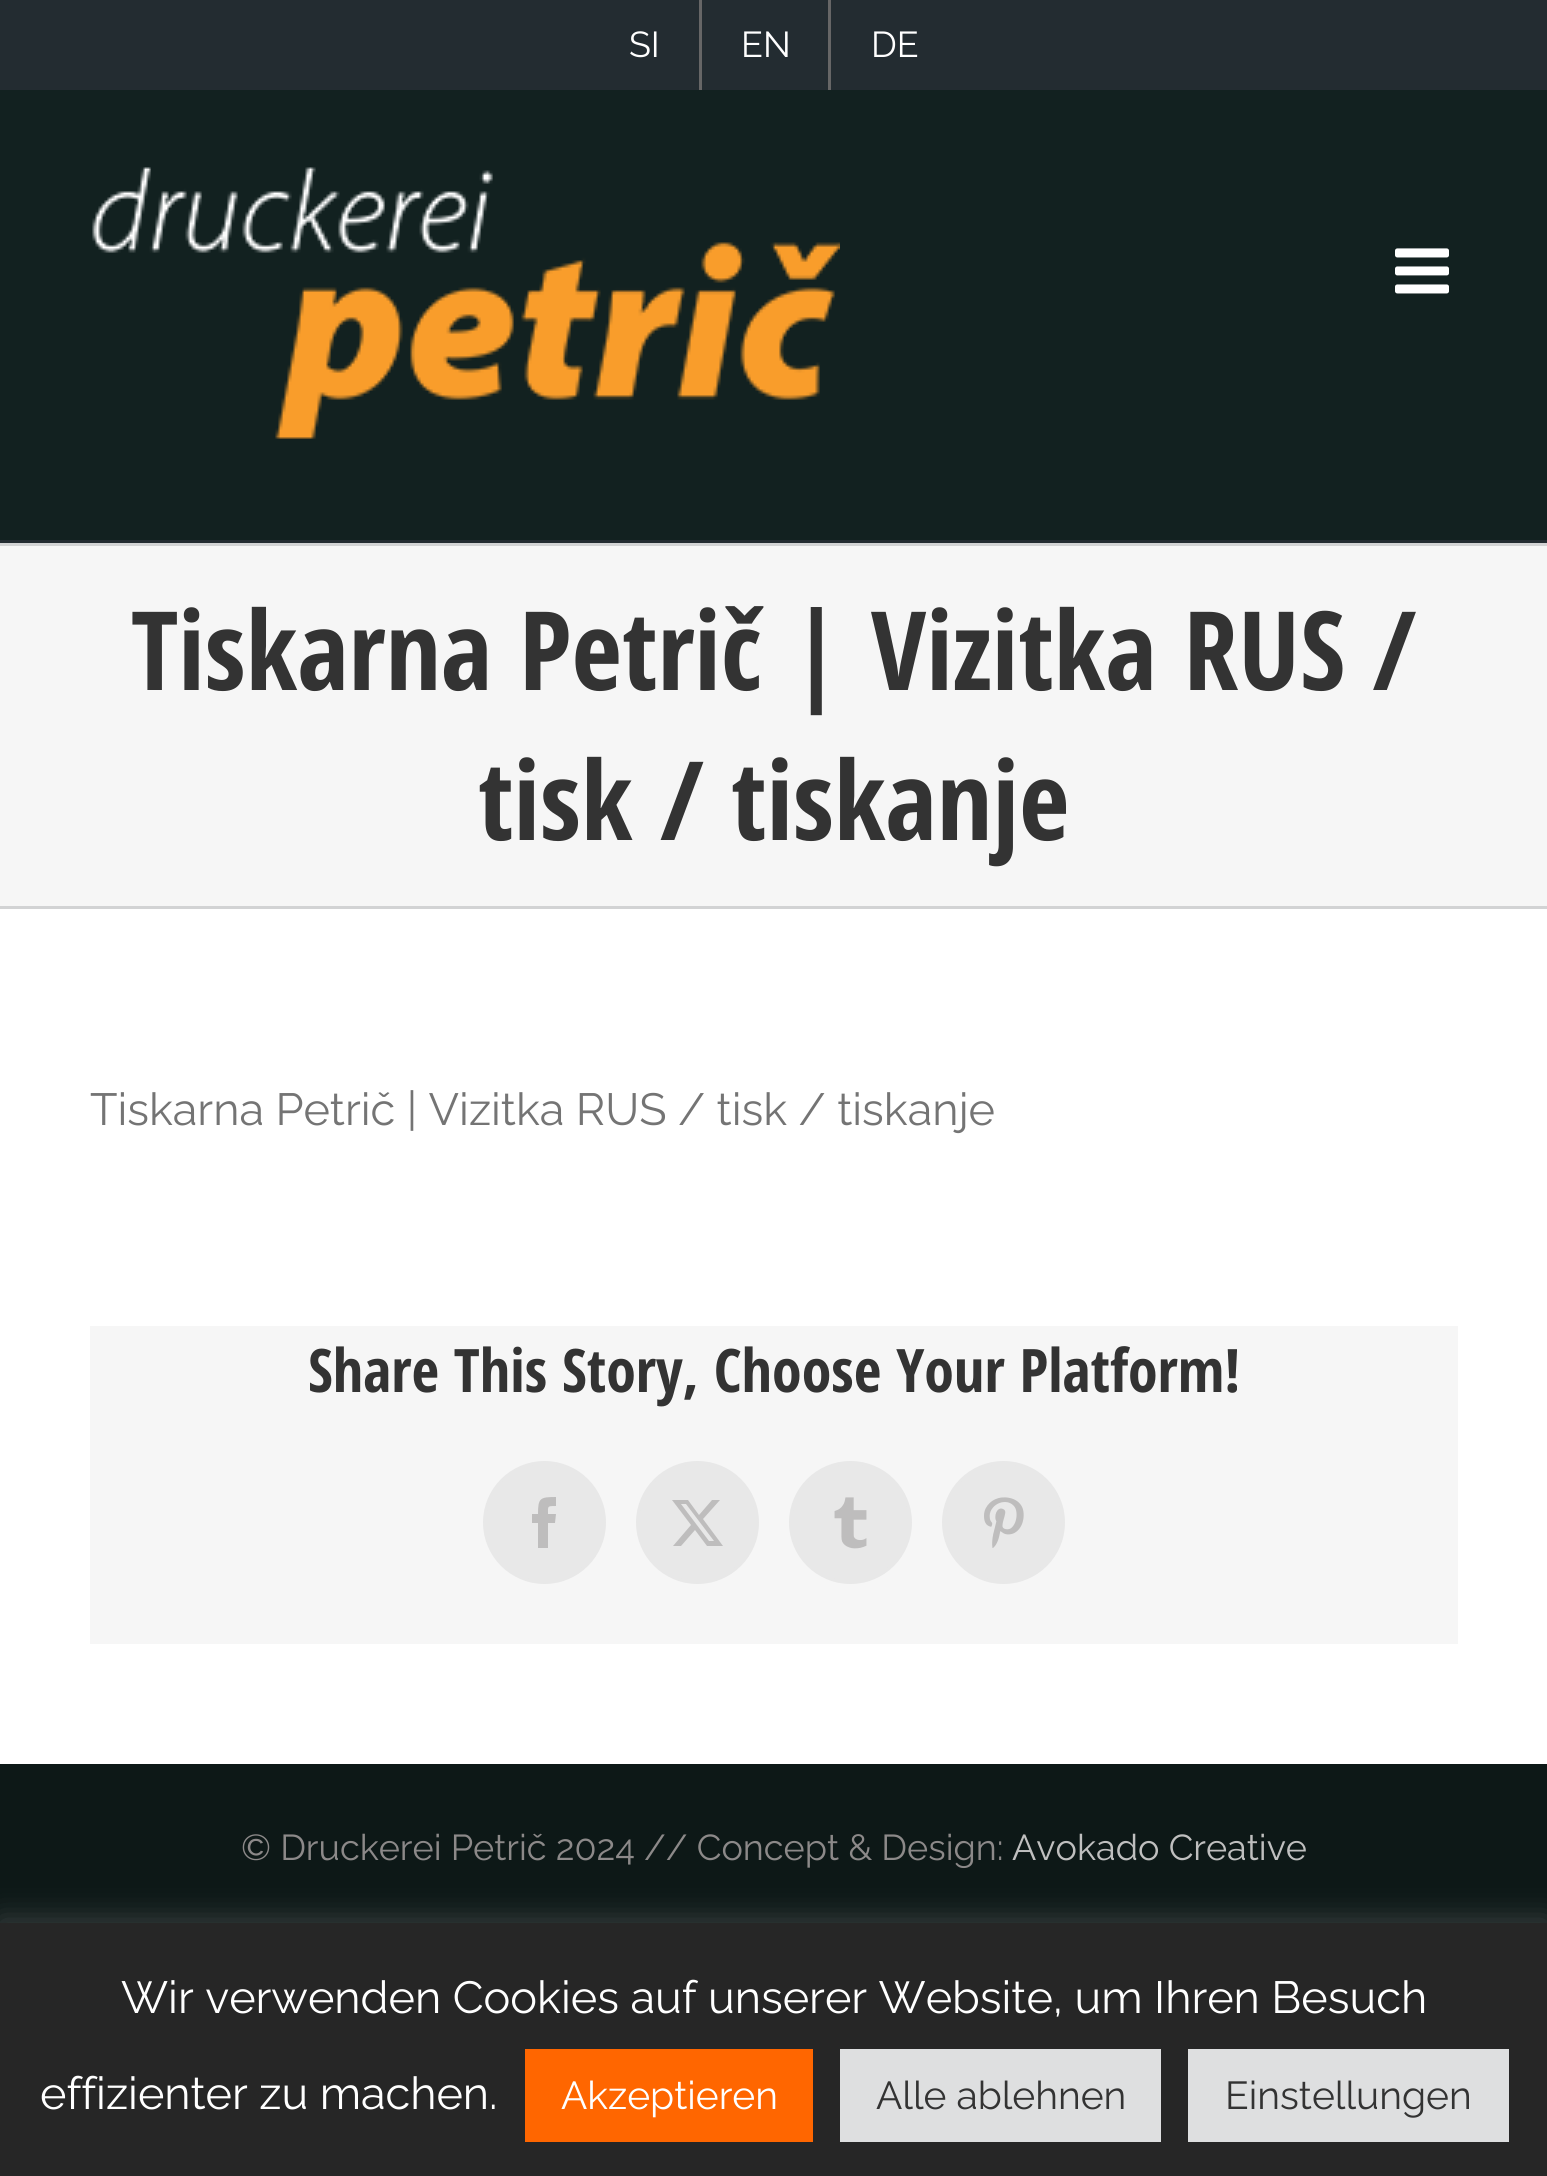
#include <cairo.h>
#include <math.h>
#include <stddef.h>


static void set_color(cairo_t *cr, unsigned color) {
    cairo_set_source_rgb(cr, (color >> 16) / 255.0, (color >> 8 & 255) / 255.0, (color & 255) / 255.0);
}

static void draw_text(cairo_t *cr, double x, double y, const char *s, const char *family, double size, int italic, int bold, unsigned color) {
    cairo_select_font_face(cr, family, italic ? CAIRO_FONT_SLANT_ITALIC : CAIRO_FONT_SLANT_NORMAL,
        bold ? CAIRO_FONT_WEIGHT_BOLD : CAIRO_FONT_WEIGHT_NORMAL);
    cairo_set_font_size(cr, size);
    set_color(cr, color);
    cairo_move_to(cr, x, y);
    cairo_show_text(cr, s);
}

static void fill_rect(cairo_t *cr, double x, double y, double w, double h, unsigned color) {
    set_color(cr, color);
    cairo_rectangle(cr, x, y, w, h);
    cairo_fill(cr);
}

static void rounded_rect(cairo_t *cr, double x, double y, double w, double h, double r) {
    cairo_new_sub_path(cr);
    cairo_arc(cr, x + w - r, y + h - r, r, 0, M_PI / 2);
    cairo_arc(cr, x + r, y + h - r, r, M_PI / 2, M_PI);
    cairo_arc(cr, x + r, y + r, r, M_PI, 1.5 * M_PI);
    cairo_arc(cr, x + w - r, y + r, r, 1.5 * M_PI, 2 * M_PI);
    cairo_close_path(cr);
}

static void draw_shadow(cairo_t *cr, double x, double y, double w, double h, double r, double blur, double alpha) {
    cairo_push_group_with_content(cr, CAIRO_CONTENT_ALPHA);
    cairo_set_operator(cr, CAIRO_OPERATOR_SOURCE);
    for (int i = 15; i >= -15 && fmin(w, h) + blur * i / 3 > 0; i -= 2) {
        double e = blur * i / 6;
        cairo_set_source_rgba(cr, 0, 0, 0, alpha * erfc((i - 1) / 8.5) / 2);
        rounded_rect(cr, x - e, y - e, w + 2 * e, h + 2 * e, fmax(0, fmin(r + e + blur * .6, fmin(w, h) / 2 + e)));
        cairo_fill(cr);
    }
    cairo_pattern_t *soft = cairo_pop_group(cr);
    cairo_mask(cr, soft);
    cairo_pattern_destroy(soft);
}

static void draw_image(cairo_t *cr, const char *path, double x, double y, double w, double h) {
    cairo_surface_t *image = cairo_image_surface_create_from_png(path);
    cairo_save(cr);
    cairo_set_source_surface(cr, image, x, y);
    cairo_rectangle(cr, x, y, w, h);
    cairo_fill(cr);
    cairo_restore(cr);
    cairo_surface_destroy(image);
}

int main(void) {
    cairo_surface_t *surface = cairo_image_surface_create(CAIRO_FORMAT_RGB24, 1547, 2176);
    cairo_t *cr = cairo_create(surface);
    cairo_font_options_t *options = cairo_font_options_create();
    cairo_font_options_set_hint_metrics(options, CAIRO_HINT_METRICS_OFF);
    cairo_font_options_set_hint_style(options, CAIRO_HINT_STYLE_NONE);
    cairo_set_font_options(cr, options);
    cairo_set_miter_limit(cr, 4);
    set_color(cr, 0xFFFFFF);
    cairo_paint(cr);
    fill_rect(cr, 0, 0, 1547, 90, 0x232C31);
    draw_text(cr, 629, 57, "SI", "Raleway Thin", 36, 0, 0, 0xFFFFFF);
    fill_rect(cr, 699, 0, 3, 90, 0x666666);
    draw_text(cr, 741, 57, "EN", "Raleway Thin", 36, 0, 0, 0xFFFFFF);
    fill_rect(cr, 828, 0, 3, 90, 0x666666);
    draw_text(cr, 871, 57, "DE", "Raleway Thin", 36, 0, 0, 0xFFFFFF);
    fill_rect(cr, 0, 90, 1547, 450, 0x122120);
    fill_rect(cr, 0, 540, 1547, 3, 0x232C31);
    draw_image(cr, "assets/img1.png", 92, 167, 748, 272);
    draw_image(cr, "assets/img2.png", 1395, 248, 54, 46);
    fill_rect(cr, 0, 546, 1547, 360, 0xF6F6F6);
    fill_rect(cr, 0, 543, 1547, 3, 0xD2D3D4);
    fill_rect(cr, 0, 906, 1547, 3, 0xD2D3D4);
    draw_text(cr, 131, 690, "Tiskarna Petrič | Vizitka RUS /", "Open Sans Condensed", 109.5, 0, 1, 0x333333);
    draw_text(cr, 478, 840, "tisk / tiskanje", "Open Sans Condensed", 109.5, 0, 1, 0x333333);
    draw_text(cr, 90, 1125, "Tiskarna Petrič | Vizitka RUS / tisk / tiskanje", "Raleway Thin", 45, 0, 0, 0x747474);
    fill_rect(cr, 90, 1326, 1368, 318, 0xF6F6F6);
    draw_text(cr, 308, 1392, "Share This Story, Choose Your Platform!", "Open Sans Condensed", 60, 0, 1, 0x333333);
    set_color(cr, 0xE8E8E8);
    cairo_new_path(cr);
    cairo_arc(cr, 544.5, 1522.5, 60, 0, 2 * M_PI);
    cairo_fill_preserve(cr);
    cairo_set_line_width(cr, 3);
    cairo_stroke(cr);
    set_color(cr, 0xBEBDBD);
    cairo_new_path(cr);
    cairo_move_to(cr, 548, 1548);
    cairo_line_to(cr, 538, 1548);
    cairo_line_to(cr, 538, 1523);
    cairo_line_to(cr, 532, 1523);
    cairo_line_to(cr, 532, 1514);
    cairo_line_to(cr, 538, 1514);
    cairo_curve_to(cr, 538, 1498, 540, 1497, 556, 1497);
    cairo_line_to(cr, 556, 1506);
    cairo_curve_to(cr, 547, 1506, 548, 1506, 548, 1514);
    cairo_line_to(cr, 556, 1514);
    cairo_line_to(cr, 555, 1523);
    cairo_line_to(cr, 548, 1523);
    cairo_close_path(cr);
    cairo_fill(cr);
    set_color(cr, 0xE8E8E8);
    cairo_arc(cr, 697.5, 1522.5, 60, 0, 2 * M_PI);
    cairo_fill_preserve(cr);
    cairo_stroke(cr);
    set_color(cr, 0xBEBDBD);
    cairo_new_path(cr);
    cairo_move_to(cr, 712, 1500);
    cairo_line_to(cr, 720, 1500);
    cairo_line_to(cr, 703, 1519);
    cairo_line_to(cr, 723, 1546);
    cairo_line_to(cr, 707, 1546);
    cairo_line_to(cr, 695, 1530);
    cairo_line_to(cr, 681, 1546);
    cairo_line_to(cr, 673, 1546);
    cairo_line_to(cr, 691, 1525);
    cairo_line_to(cr, 672, 1500);
    cairo_line_to(cr, 688, 1500);
    cairo_line_to(cr, 699, 1515);
    cairo_close_path(cr);
    cairo_move_to(cr, 709, 1541);
    cairo_line_to(cr, 714, 1541);
    cairo_line_to(cr, 686, 1504);
    cairo_line_to(cr, 681, 1504);
    cairo_close_path(cr);
    cairo_fill(cr);
    set_color(cr, 0xE8E8E8);
    cairo_arc(cr, 850.5, 1522.5, 60, 0, 2 * M_PI);
    cairo_fill_preserve(cr);
    cairo_stroke(cr);
    draw_image(cr, "assets/img3.png", 834, 1497, 33, 52);
    cairo_arc(cr, 1003.5, 1522.5, 60, 0, 2 * M_PI);
    cairo_fill_preserve(cr);
    cairo_stroke(cr);
    draw_image(cr, "assets/img4.png", 984, 1497, 40, 51);
    fill_rect(cr, 0, 1764, 1547, 159, 0x0D1817);
    draw_text(cr, 241, 1860, "© Druckerei Petrič 2024 // Concept & Design:", "Raleway Thin", 36, 0, 0, 0x8C8989);
    draw_text(cr, 1012, 1860, "Avokado Creative", "Raleway Thin", 36, 0, 0, 0xBFBFBF);
    set_color(cr, 0xACABAB);
    draw_shadow(cr, 0, 1920, 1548, 255, 0, 15, 0.3);
    fill_rect(cr, 0, 1923, 1547, 253, 0x262626);
    draw_text(cr, 121, 2013, "Wir verwenden Cookies auf unserer Website, um Ihren Besuch", "Raleway Thin", 45, 0, 0, 0xFFFFFF);
    draw_text(cr, 40, 2109, "effizienter zu machen.", "Raleway Thin", 45, 0, 0, 0xFFFFFF);
    fill_rect(cr, 525, 2049, 288, 93, 0xFF6600);
    draw_text(cr, 561, 2109, "Akzeptieren", "Raleway Thin", 39, 0, 0, 0xFFFFFF);
    fill_rect(cr, 840, 2049, 321, 93, 0xDEDFE0);
    draw_text(cr, 876, 2109, "Alle ablehnen", "Raleway Thin", 39, 0, 0, 0x333333);
    fill_rect(cr, 1188, 2049, 321, 93, 0xDEDFE0);
    draw_text(cr, 1225, 2109, "Einstellungen", "Raleway Thin", 39, 0, 0, 0x333333);
    cairo_surface_write_to_png(surface, "output.png");
    cairo_font_options_destroy(options);
    cairo_destroy(cr);
    cairo_surface_destroy(surface);
    return 0;
}
